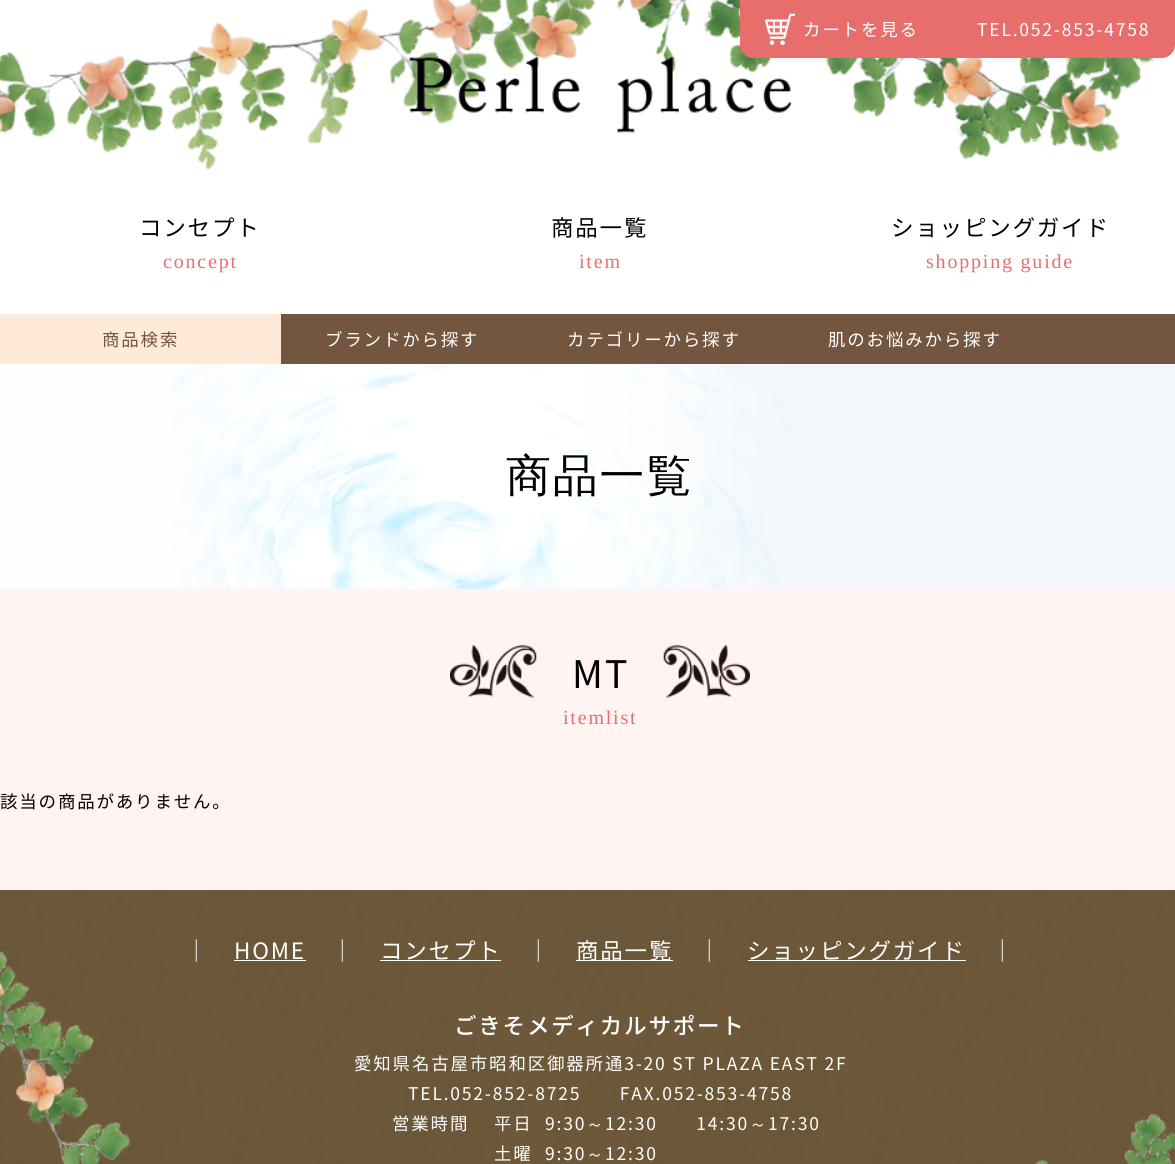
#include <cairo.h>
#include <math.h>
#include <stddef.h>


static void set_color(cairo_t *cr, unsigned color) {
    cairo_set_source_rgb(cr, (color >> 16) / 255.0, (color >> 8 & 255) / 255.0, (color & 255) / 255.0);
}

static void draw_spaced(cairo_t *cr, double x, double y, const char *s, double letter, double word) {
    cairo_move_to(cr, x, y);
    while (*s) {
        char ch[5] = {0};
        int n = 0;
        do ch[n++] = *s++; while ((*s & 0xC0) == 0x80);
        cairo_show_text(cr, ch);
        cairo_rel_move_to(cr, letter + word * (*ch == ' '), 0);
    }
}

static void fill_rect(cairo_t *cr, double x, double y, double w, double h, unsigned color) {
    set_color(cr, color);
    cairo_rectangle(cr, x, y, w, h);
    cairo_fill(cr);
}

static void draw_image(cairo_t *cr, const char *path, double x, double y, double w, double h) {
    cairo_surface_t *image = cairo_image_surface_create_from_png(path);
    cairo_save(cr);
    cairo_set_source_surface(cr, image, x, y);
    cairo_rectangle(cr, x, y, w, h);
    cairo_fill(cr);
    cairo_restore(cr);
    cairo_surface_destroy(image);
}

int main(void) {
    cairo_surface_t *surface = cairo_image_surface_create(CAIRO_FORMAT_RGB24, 1175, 1164);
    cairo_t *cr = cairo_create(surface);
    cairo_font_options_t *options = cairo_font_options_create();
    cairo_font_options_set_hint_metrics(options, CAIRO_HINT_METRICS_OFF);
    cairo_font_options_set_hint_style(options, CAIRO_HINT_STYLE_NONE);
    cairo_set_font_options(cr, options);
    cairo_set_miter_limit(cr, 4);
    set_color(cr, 0xFFF4F1);
    cairo_paint(cr);
    fill_rect(cr, 0, 0, 1175, 314, 0xFFFFFF);
    draw_image(cr, "assets/img1.png", 0, 0, 1154, 170);
    draw_image(cr, "assets/img3.png", 408, 56, 384, 77);
    set_color(cr, 0xE86E6E);
    cairo_new_path(cr);
    cairo_move_to(cr, 740, 0);
    cairo_line_to(cr, 1175, 0);
    cairo_line_to(cr, 1175, 45);
    cairo_curve_to(cr, 1175, 52, 1169, 58, 1162, 58);
    cairo_line_to(cr, 753, 58);
    cairo_curve_to(cr, 746, 58, 740, 52, 740, 45);
    cairo_close_path(cr);
    cairo_fill(cr);
    draw_image(cr, "assets/img2.png", 765, 13, 30, 32);
    cairo_select_font_face(cr, "Noto Sans JP", CAIRO_FONT_SLANT_NORMAL, CAIRO_FONT_WEIGHT_NORMAL);
    cairo_set_font_size(cr, 17.5);
    set_color(cr, 0xFFFFFF);
    draw_spaced(cr, 803, 36, "カートを見る", 1.8, 0);
    draw_spaced(cr, 977, 36, "TEL.052-853-4758", 1.8, 0);
    cairo_set_font_size(cr, 22.5);
    set_color(cr, 0x000000);
    draw_spaced(cr, 139, 236, "コンセプト", 1.8, 0);
    cairo_select_font_face(cr, "Liberation Serif", CAIRO_FONT_SLANT_NORMAL, CAIRO_FONT_WEIGHT_NORMAL);
    cairo_set_font_size(cr, 20);
    set_color(cr, 0xE86E6E);
    draw_spaced(cr, 163, 268, "concept", 1.8, 0);
    cairo_select_font_face(cr, "Noto Sans JP", CAIRO_FONT_SLANT_NORMAL, CAIRO_FONT_WEIGHT_NORMAL);
    cairo_set_font_size(cr, 22.5);
    set_color(cr, 0x000000);
    draw_spaced(cr, 551, 236, "商品一覧", 1.8, 0);
    cairo_select_font_face(cr, "Liberation Serif", CAIRO_FONT_SLANT_NORMAL, CAIRO_FONT_WEIGHT_NORMAL);
    cairo_set_font_size(cr, 20);
    set_color(cr, 0xE86E6E);
    draw_spaced(cr, 579, 268, "item", 1.8, 0);
    cairo_select_font_face(cr, "Noto Sans JP", CAIRO_FONT_SLANT_NORMAL, CAIRO_FONT_WEIGHT_NORMAL);
    cairo_set_font_size(cr, 22.5);
    set_color(cr, 0x000000);
    draw_spaced(cr, 891, 236, "ショッピングガイド", 1.8, 0);
    cairo_select_font_face(cr, "Liberation Serif", CAIRO_FONT_SLANT_NORMAL, CAIRO_FONT_WEIGHT_NORMAL);
    cairo_set_font_size(cr, 20);
    set_color(cr, 0xE86E6E);
    draw_spaced(cr, 926, 268, "shopping guide", 1.8, 0);
    fill_rect(cr, 281, 314, 894, 50, 0x72563F);
    fill_rect(cr, 0, 314, 281, 50, 0xFFE9D8);
    cairo_select_font_face(cr, "Noto Sans JP", CAIRO_FONT_SLANT_NORMAL, CAIRO_FONT_WEIGHT_NORMAL);
    cairo_set_font_size(cr, 17.5);
    set_color(cr, 0x72563F);
    draw_spaced(cr, 102, 346, "商品検索", 1.8, 0);
    set_color(cr, 0xFFFFFF);
    draw_spaced(cr, 325, 346, "ブランドから探す", 1.8, 0);
    draw_spaced(cr, 567, 346, "カテゴリーから探す", 1.8, 0);
    draw_spaced(cr, 828, 346, "肌のお悩みから探す", 1.8, 0);
    draw_image(cr, "assets/img4.png", 0, 364, 1175, 225);
    cairo_select_font_face(cr, "WenQuanYi Zen Hei Medium", CAIRO_FONT_SLANT_NORMAL, CAIRO_FONT_WEIGHT_NORMAL);
    cairo_set_font_size(cr, 45);
    set_color(cr, 0x000000);
    draw_spaced(cr, 506, 491, "商品一覧", 1.8, 0);
    draw_image(cr, "assets/img5.png", 450, 645, 300, 53);
    cairo_select_font_face(cr, "Noto Sans JP", CAIRO_FONT_SLANT_NORMAL, CAIRO_FONT_WEIGHT_NORMAL);
    cairo_set_font_size(cr, 38);
    draw_spaced(cr, 572, 688, "MT", 1.8, 0);
    cairo_select_font_face(cr, "Liberation Serif", CAIRO_FONT_SLANT_NORMAL, CAIRO_FONT_WEIGHT_NORMAL);
    cairo_set_font_size(cr, 20);
    set_color(cr, 0xE86E6E);
    draw_spaced(cr, 563, 724, "itemlist", 1.8, 0);
    cairo_select_font_face(cr, "Noto Sans JP", CAIRO_FONT_SLANT_NORMAL, CAIRO_FONT_WEIGHT_NORMAL);
    cairo_set_font_size(cr, 17.5);
    set_color(cr, 0x000000);
    draw_spaced(cr, 0, 808, "該当の商品がありません。", 1.8, 0);
    draw_image(cr, "assets/img6.png", 0, 890, 1175, 274);
    cairo_set_font_size(cr, 22.5);
    set_color(cr, 0xFFFFFF);
    draw_spaced(cr, 185, 959, "｜", 1.8, 0);
    draw_spaced(cr, 234, 959, "HOME", 1.8, 0);
    fill_rect(cr, 234, 960, 72, 1, 0xFFFFFF);
    draw_spaced(cr, 331, 959, "｜", 1.8, 0);
    draw_spaced(cr, 380, 959, "コンセプト", 1.8, 0);
    fill_rect(cr, 380, 960, 121, 1, 0xFFFFFF);
    draw_spaced(cr, 527, 959, "｜", 1.8, 0);
    fill_rect(cr, 576, 960, 97, 1, 0xFFFFFF);
    draw_spaced(cr, 576, 959, "商品一覧", 1.8, 0);
    draw_spaced(cr, 698, 959, "｜", 1.8, 0);
    fill_rect(cr, 748, 960, 218, 1, 0xFFFFFF);
    draw_spaced(cr, 747, 959, "ショッピングガイド", 1.8, 0);
    draw_spaced(cr, 991, 959, "｜", 1.8, 0);
    cairo_select_font_face(cr, "Noto Sans JP Medium", CAIRO_FONT_SLANT_NORMAL, CAIRO_FONT_WEIGHT_NORMAL);
    draw_spaced(cr, 454, 1034, "ごきそメディカルサポート", 1.8, 0);
    cairo_select_font_face(cr, "Noto Sans JP", CAIRO_FONT_SLANT_NORMAL, CAIRO_FONT_WEIGHT_NORMAL);
    cairo_set_font_size(cr, 17.5);
    draw_spaced(cr, 354, 1070, "愛知県名古屋市昭和区御器所通3-20 ST PLAZA EAST 2F", 1.8, 0);
    draw_spaced(cr, 408, 1100, "TEL.052-852-8725　　FAX.052-853-4758", 1.8, 0);
    draw_spaced(cr, 392, 1130, "営業時間", 1.8, 0);
    draw_spaced(cr, 494, 1130, "平日", 1.8, 0);
    draw_spaced(cr, 545, 1130, "9:30", 1.8, 0);
    cairo_select_font_face(cr, "WenQuanYi Zen Hei Medium", CAIRO_FONT_SLANT_NORMAL, CAIRO_FONT_WEIGHT_NORMAL);
    draw_spaced(cr, 586, 1130, "～", 1.8, 0);
    cairo_select_font_face(cr, "Noto Sans JP", CAIRO_FONT_SLANT_NORMAL, CAIRO_FONT_WEIGHT_NORMAL);
    draw_spaced(cr, 605, 1130, "12:30　　14:30", 1.8, 0);
    cairo_select_font_face(cr, "WenQuanYi Zen Hei Medium", CAIRO_FONT_SLANT_NORMAL, CAIRO_FONT_WEIGHT_NORMAL);
    draw_spaced(cr, 749, 1130, "～", 1.8, 0);
    cairo_select_font_face(cr, "Noto Sans JP", CAIRO_FONT_SLANT_NORMAL, CAIRO_FONT_WEIGHT_NORMAL);
    draw_spaced(cr, 768, 1130, "17:30", 1.8, 0);
    draw_spaced(cr, 494, 1160, "土曜", 1.8, 0);
    draw_spaced(cr, 545, 1160, "9:30", 1.8, 0);
    cairo_select_font_face(cr, "WenQuanYi Zen Hei Medium", CAIRO_FONT_SLANT_NORMAL, CAIRO_FONT_WEIGHT_NORMAL);
    draw_spaced(cr, 586, 1160, "～", 1.8, 0);
    cairo_select_font_face(cr, "Noto Sans JP", CAIRO_FONT_SLANT_NORMAL, CAIRO_FONT_WEIGHT_NORMAL);
    draw_spaced(cr, 605, 1160, "12:30", 1.8, 0);
    cairo_surface_write_to_png(surface, "output.png");
    cairo_font_options_destroy(options);
    cairo_destroy(cr);
    cairo_surface_destroy(surface);
    return 0;
}
